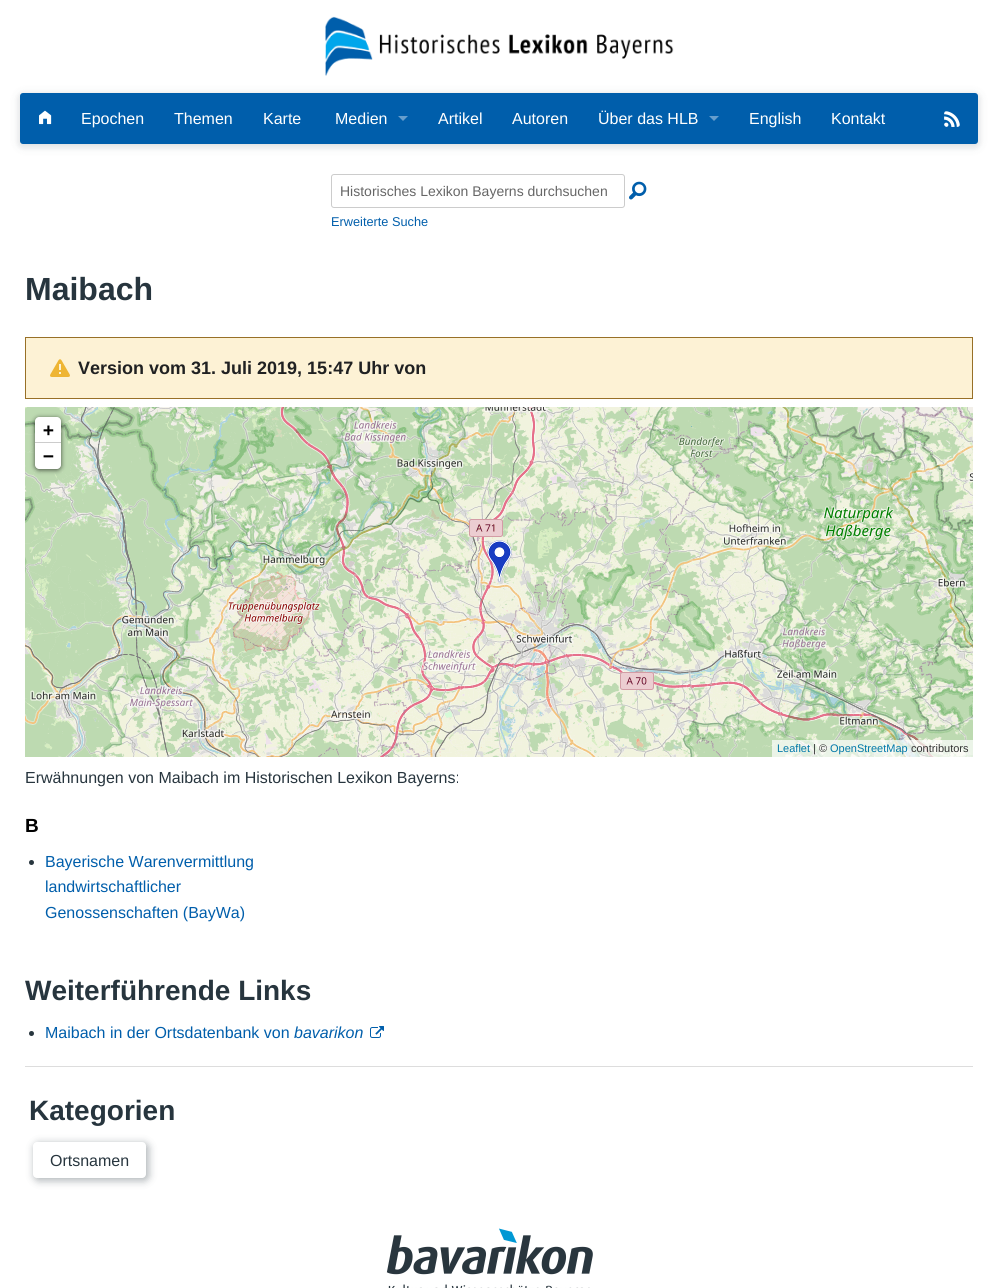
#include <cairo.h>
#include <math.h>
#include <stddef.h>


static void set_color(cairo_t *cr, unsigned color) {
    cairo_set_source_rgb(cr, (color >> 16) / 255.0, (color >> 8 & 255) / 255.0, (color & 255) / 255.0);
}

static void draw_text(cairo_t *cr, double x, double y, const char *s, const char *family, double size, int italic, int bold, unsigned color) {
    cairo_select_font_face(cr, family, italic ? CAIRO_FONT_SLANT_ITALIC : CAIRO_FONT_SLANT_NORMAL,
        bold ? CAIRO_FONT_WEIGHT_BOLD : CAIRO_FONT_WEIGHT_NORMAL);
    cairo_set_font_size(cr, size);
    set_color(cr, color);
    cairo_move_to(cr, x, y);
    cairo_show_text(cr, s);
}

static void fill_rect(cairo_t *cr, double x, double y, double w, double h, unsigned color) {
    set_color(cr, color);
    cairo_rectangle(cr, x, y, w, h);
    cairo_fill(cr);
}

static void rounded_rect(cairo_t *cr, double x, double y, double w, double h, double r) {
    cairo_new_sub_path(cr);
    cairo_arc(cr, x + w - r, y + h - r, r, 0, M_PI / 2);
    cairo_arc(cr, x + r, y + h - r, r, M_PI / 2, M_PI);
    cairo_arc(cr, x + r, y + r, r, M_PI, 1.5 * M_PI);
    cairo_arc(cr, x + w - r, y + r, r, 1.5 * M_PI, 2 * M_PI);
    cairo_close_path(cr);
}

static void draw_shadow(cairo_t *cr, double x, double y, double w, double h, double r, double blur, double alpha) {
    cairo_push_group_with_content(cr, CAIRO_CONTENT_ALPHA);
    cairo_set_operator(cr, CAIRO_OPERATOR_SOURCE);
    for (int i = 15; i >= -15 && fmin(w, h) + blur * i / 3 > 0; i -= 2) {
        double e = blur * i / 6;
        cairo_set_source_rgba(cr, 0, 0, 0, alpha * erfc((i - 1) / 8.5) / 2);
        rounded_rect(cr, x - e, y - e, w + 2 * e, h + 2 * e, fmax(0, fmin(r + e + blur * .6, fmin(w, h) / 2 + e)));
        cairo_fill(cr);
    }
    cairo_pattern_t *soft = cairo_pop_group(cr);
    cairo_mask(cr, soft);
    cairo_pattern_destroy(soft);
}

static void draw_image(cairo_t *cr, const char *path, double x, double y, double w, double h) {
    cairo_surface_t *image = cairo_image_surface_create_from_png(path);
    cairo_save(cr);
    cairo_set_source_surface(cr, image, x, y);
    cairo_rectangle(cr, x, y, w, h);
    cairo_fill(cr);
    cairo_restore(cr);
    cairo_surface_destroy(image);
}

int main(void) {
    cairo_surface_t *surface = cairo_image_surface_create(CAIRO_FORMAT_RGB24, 998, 1288);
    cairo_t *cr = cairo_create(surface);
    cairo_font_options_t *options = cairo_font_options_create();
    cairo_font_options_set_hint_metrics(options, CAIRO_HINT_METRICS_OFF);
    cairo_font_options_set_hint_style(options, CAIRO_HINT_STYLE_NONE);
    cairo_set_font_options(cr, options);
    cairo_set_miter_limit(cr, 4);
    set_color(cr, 0xFFFFFF);
    cairo_paint(cr);
    draw_image(cr, "assets/img1.png", 325, 16, 349, 60);
    set_color(cr, 0x27353E);
    draw_shadow(cr, 19, 94, 960, 53, 4, 4, 0.17);
    set_color(cr, 0x005EAB);
    rounded_rect(cr, 20, 93, 958, 51, 3);
    cairo_fill(cr);
    draw_image(cr, "assets/img2.png", 39, 110, 13, 15);
    draw_text(cr, 81, 124, "Epochen", "Liberation Sans", 16, 0, 0, 0xFFFFFF);
    draw_text(cr, 174, 124, "Themen", "Liberation Sans", 16, 0, 0, 0xFFFFFF);
    draw_text(cr, 263, 124, "Karte", "Liberation Sans", 16, 0, 0, 0xFFFFFF);
    draw_text(cr, 335, 124, "Medien", "Liberation Sans", 16, 0, 0, 0xFFFFFF);
    set_color(cr, 0x669ECD);
    cairo_new_path(cr);
    cairo_move_to(cr, 398, 116);
    cairo_line_to(cr, 408, 116);
    cairo_line_to(cr, 403, 121);
    cairo_close_path(cr);
    cairo_fill(cr);
    draw_text(cr, 438, 124, "Artikel", "Liberation Sans", 16, 0, 0, 0xFFFFFF);
    draw_text(cr, 512, 124, "Autoren", "Liberation Sans", 16, 0, 0, 0xFFFFFF);
    draw_text(cr, 598, 124, "Über das HLB", "Liberation Sans", 16, 0, 0, 0xFFFFFF);
    set_color(cr, 0x669ECD);
    cairo_new_path(cr);
    cairo_move_to(cr, 709, 116);
    cairo_line_to(cr, 719, 116);
    cairo_line_to(cr, 714, 121);
    cairo_close_path(cr);
    cairo_fill(cr);
    draw_text(cr, 749, 124, "English", "Liberation Sans", 16, 0, 0, 0xFFFFFF);
    draw_text(cr, 831, 124, "Kontakt", "Liberation Sans", 16, 0, 0, 0xFFFFFF);
    draw_image(cr, "assets/img3.png", 944, 111, 16, 16);
    rounded_rect(cr, 331.5, 174.5, 293, 33, 2.5);
    set_color(cr, 0xCCCCCC);
    cairo_set_line_width(cr, 1);
    cairo_stroke(cr);
    draw_text(cr, 340, 196, "Historisches Lexikon Bayerns durchsuchen", "Liberation Sans", 14, 0, 0, 0x666666);
    draw_image(cr, "assets/img4.png", 629, 181, 18, 19);
    draw_text(cr, 331, 226, "Erweiterte Suche", "Liberation Sans", 12.75, 0, 0, 0x005EAB);
    draw_text(cr, 25, 300, "Maibach", "Liberation Sans", 32, 0, 1, 0x27353E);
    set_color(cr, 0xFDF2D5);
    cairo_rectangle(cr, 25.5, 337.5, 947, 61);
    cairo_fill_preserve(cr);
    set_color(cr, 0x987027);
    cairo_stroke(cr);
    draw_image(cr, "assets/img5.png", 50, 359, 20, 18);
    draw_text(cr, 78, 374, "Version vom 31. Juli 2019, 15:47 Uhr von", "Liberation Sans", 18, 0, 1, 0x202122);
    draw_image(cr, "assets/img6.png", 25, 407, 235, 210);
    draw_image(cr, "assets/img7.png", 260, 407, 256, 210);
    draw_image(cr, "assets/img8.png", 516, 407, 256, 210);
    draw_image(cr, "assets/img9.png", 772, 407, 201, 210);
    draw_image(cr, "assets/img10.png", 25, 617, 235, 140);
    draw_image(cr, "assets/img11.png", 260, 617, 256, 140);
    draw_image(cr, "assets/img12.png", 516, 617, 256, 140);
    draw_image(cr, "assets/img13.png", 772, 617, 201, 140);
    draw_image(cr, "assets/img14.png", 487, 540, 25, 42);
    set_color(cr, 0x000000);
    draw_shadow(cr, 35, 418, 26, 52, 4, 2.5, 0.65);
    set_color(cr, 0xFFFFFF);
    cairo_new_path(cr);
    cairo_move_to(cr, 39, 417);
    cairo_line_to(cr, 57, 417);
    cairo_curve_to(cr, 59, 417, 61, 419, 61, 421);
    cairo_line_to(cr, 61, 443);
    cairo_line_to(cr, 35, 443);
    cairo_line_to(cr, 35, 421);
    cairo_curve_to(cr, 35, 419, 37, 417, 39, 417);
    cairo_close_path(cr);
    cairo_fill(cr);
    fill_rect(cr, 35, 442, 26, 1, 0xCCCCCC);
    draw_text(cr, 43, 436, "+", "DejaVu Sans Mono", 18, 0, 1, 0x000000);
    set_color(cr, 0xFFFFFF);
    cairo_new_path(cr);
    cairo_move_to(cr, 35, 443);
    cairo_line_to(cr, 61, 443);
    cairo_line_to(cr, 61, 465);
    cairo_curve_to(cr, 61, 467, 59, 469, 57, 469);
    cairo_line_to(cr, 39, 469);
    cairo_curve_to(cr, 37, 469, 35, 467, 35, 465);
    cairo_close_path(cr);
    cairo_fill(cr);
    draw_text(cr, 43, 462, "−", "DejaVu Sans Mono", 18, 0, 1, 0x000000);
    cairo_set_source_rgba(cr, 1, 1, 1, 0.7);
    cairo_rectangle(cr, 772, 740, 201, 17);
    cairo_fill(cr);
    draw_text(cr, 777, 752, "Leaflet", "Liberation Sans", 11, 0, 0, 0x0078A8);
    draw_text(cr, 813, 752, "| ©", "Liberation Sans", 11, 0, 0, 0x333333);
    draw_text(cr, 830, 752, "OpenStreetMap", "Liberation Sans", 11, 0, 0, 0x0078A8);
    draw_text(cr, 911, 752, "contributors", "Liberation Sans", 11, 0, 0, 0x333333);
    draw_text(cr, 25, 783, "Erwähnungen von Maibach im Historischen Lexikon Bayerns:", "Liberation Sans", 16, 0, 0, 0x27353E);
    draw_text(cr, 25, 832, "B", "Liberation Sans", 19, 0, 1, 0x000000);
    set_color(cr, 0x27353E);
    cairo_new_path(cr);
    cairo_arc(cr, 31.5, 862.5, 2.5, 0, 2 * M_PI);
    cairo_fill(cr);
    draw_text(cr, 45, 867, "Bayerische Warenvermittlung", "Liberation Sans", 16, 0, 0, 0x005EAB);
    draw_text(cr, 45, 892, "landwirtschaftlicher", "Liberation Sans", 16, 0, 0, 0x005EAB);
    draw_text(cr, 45, 918, "Genossenschaften (BayWa)", "Liberation Sans", 16, 0, 0, 0x005EAB);
    draw_text(cr, 25, 1000, "Weiterführende Links", "Liberation Sans", 28, 0, 1, 0x27353E);
    cairo_new_path(cr);
    cairo_arc(cr, 31.5, 1033.5, 2.5, 0, 2 * M_PI);
    cairo_fill(cr);
    draw_text(cr, 45, 1038, "Maibach in der Ortsdatenbank von", "Liberation Sans", 16, 0, 0, 0x005EAB);
    draw_text(cr, 294, 1038, "bavarikon", "Liberation Sans", 16, 1, 0, 0x005EAB);
    draw_image(cr, "assets/img15.png", 370, 1026, 14, 12);
    fill_rect(cr, 25, 1066, 948, 1, 0xDDDDDD);
    draw_text(cr, 29, 1120, "Kategorien", "Liberation Sans", 28, 0, 1, 0x27353E);
    set_color(cr, 0x27353E);
    draw_shadow(cr, 34, 1143, 115, 38, 5, 4, 0.35);
    set_color(cr, 0xFFFFFF);
    rounded_rect(cr, 33, 1142, 113, 36, 4);
    cairo_fill(cr);
    draw_text(cr, 50, 1166, "Ortsnamen", "Liberation Sans", 16, 0, 0, 0x27353E);
    draw_image(cr, "assets/img16.png", 386, 1228, 207, 60);
    cairo_surface_write_to_png(surface, "output.png");
    cairo_font_options_destroy(options);
    cairo_destroy(cr);
    cairo_surface_destroy(surface);
    return 0;
}
